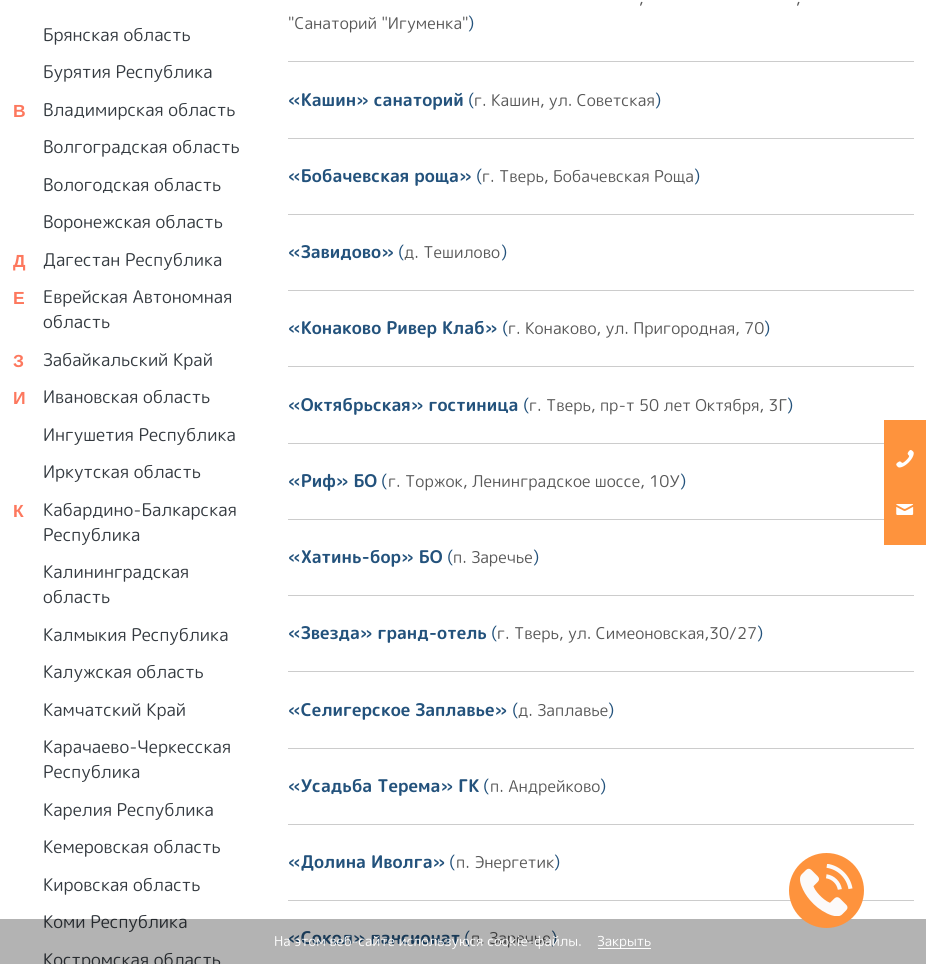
#include <cairo.h>
#include <math.h>
#include <stddef.h>


static void set_color(cairo_t *cr, unsigned color) {
    cairo_set_source_rgb(cr, (color >> 16) / 255.0, (color >> 8 & 255) / 255.0, (color & 255) / 255.0);
}

static void draw_text(cairo_t *cr, double x, double y, const char *s, const char *family, double size, int italic, int bold, unsigned color) {
    cairo_select_font_face(cr, family, italic ? CAIRO_FONT_SLANT_ITALIC : CAIRO_FONT_SLANT_NORMAL,
        bold ? CAIRO_FONT_WEIGHT_BOLD : CAIRO_FONT_WEIGHT_NORMAL);
    cairo_set_font_size(cr, size);
    set_color(cr, color);
    cairo_move_to(cr, x, y);
    cairo_show_text(cr, s);
}

static void fill_rect(cairo_t *cr, double x, double y, double w, double h, unsigned color) {
    set_color(cr, color);
    cairo_rectangle(cr, x, y, w, h);
    cairo_fill(cr);
}

static void draw_image(cairo_t *cr, const char *path, double x, double y, double w, double h) {
    cairo_surface_t *image = cairo_image_surface_create_from_png(path);
    cairo_save(cr);
    cairo_set_source_surface(cr, image, x, y);
    cairo_rectangle(cr, x, y, w, h);
    cairo_fill(cr);
    cairo_restore(cr);
    cairo_surface_destroy(image);
}

int main(void) {
    cairo_surface_t *surface = cairo_image_surface_create(CAIRO_FORMAT_RGB24, 926, 964);
    cairo_t *cr = cairo_create(surface);
    cairo_font_options_t *options = cairo_font_options_create();
    cairo_font_options_set_hint_metrics(options, CAIRO_HINT_METRICS_OFF);
    cairo_font_options_set_hint_style(options, CAIRO_HINT_STYLE_NONE);
    cairo_set_font_options(cr, options);
    cairo_set_miter_limit(cr, 4);
    set_color(cr, 0xFFFFFF);
    cairo_paint(cr);
    draw_text(cr, 43, 41, "Брянская область", "Rounded Mplus 1c", 17.5, 0, 0, 0x343A40);
    draw_text(cr, 43, 78, "Бурятия Республика", "Rounded Mplus 1c", 17.5, 0, 0, 0x343A40);
    draw_text(cr, 13, 117, "В", "Liberation Sans", 17.5, 0, 1, 0xFD785E);
    draw_text(cr, 43, 116, "Владимирская область", "Rounded Mplus 1c", 17.5, 0, 0, 0x343A40);
    draw_text(cr, 43, 153, "Волгоградская область", "Rounded Mplus 1c", 17.5, 0, 0, 0x343A40);
    draw_text(cr, 43, 191, "Вологодская область", "Rounded Mplus 1c", 17.5, 0, 0, 0x343A40);
    draw_text(cr, 43, 228, "Воронежская область", "Rounded Mplus 1c", 17.5, 0, 0, 0x343A40);
    draw_text(cr, 13, 267, "Д", "Liberation Sans", 17.5, 0, 1, 0xFD785E);
    draw_text(cr, 43, 266, "Дагестан Республика", "Rounded Mplus 1c", 17.5, 0, 0, 0x343A40);
    draw_text(cr, 13, 304, "Е", "Liberation Sans", 17.5, 0, 1, 0xFD785E);
    draw_text(cr, 43, 303, "Еврейская Автономная", "Rounded Mplus 1c", 17.5, 0, 0, 0x343A40);
    draw_text(cr, 43, 328, "область", "Rounded Mplus 1c", 17.5, 0, 0, 0x343A40);
    draw_text(cr, 13, 367, "З", "Liberation Sans", 17.5, 0, 1, 0xFD785E);
    draw_text(cr, 43, 366, "Забайкальский Край", "Rounded Mplus 1c", 17.5, 0, 0, 0x343A40);
    draw_text(cr, 13, 404, "И", "Liberation Sans", 17.5, 0, 1, 0xFD785E);
    draw_text(cr, 43, 403, "Ивановская область", "Rounded Mplus 1c", 17.5, 0, 0, 0x343A40);
    draw_text(cr, 43, 441, "Ингушетия Республика", "Rounded Mplus 1c", 17.5, 0, 0, 0x343A40);
    draw_text(cr, 43, 478, "Иркутская область", "Rounded Mplus 1c", 17.5, 0, 0, 0x343A40);
    draw_text(cr, 13, 517, "К", "Liberation Sans", 17.5, 0, 1, 0xFD785E);
    draw_text(cr, 43, 516, "Кабардино-Балкарская", "Rounded Mplus 1c", 17.5, 0, 0, 0x343A40);
    draw_text(cr, 43, 541, "Республика", "Rounded Mplus 1c", 17.5, 0, 0, 0x343A40);
    draw_text(cr, 43, 578, "Калининградская", "Rounded Mplus 1c", 17.5, 0, 0, 0x343A40);
    draw_text(cr, 43, 603, "область", "Rounded Mplus 1c", 17.5, 0, 0, 0x343A40);
    draw_text(cr, 43, 641, "Калмыкия Республика", "Rounded Mplus 1c", 17.5, 0, 0, 0x343A40);
    draw_text(cr, 43, 678, "Калужская область", "Rounded Mplus 1c", 17.5, 0, 0, 0x343A40);
    draw_text(cr, 43, 716, "Камчатский Край", "Rounded Mplus 1c", 17.5, 0, 0, 0x343A40);
    draw_text(cr, 43, 753, "Карачаево-Черкесская", "Rounded Mplus 1c", 17.5, 0, 0, 0x343A40);
    draw_text(cr, 43, 778, "Республика", "Rounded Mplus 1c", 17.5, 0, 0, 0x343A40);
    draw_text(cr, 43, 816, "Карелия Республика", "Rounded Mplus 1c", 17.5, 0, 0, 0x343A40);
    draw_text(cr, 43, 853, "Кемеровская область", "Rounded Mplus 1c", 17.5, 0, 0, 0x343A40);
    draw_text(cr, 43, 891, "Кировская область", "Rounded Mplus 1c", 17.5, 0, 0, 0x343A40);
    draw_text(cr, 43, 928, "Коми Республика", "Rounded Mplus 1c", 17.5, 0, 0, 0x343A40);
    draw_text(cr, 43, 966, "Костромская область", "Rounded Mplus 1c", 17.5, 0, 0, 0x343A40);
    draw_text(cr, 639, 4, ",", "Rounded Mplus 1c", 16.25, 0, 0, 0x585858);
    draw_text(cr, 796, 4, ",", "Rounded Mplus 1c", 16.25, 0, 0, 0x585858);
    draw_text(cr, 288, 29, "\"Санаторий \"Игуменка\"", "Rounded Mplus 1c", 16.25, 0, 0, 0x585858);
    draw_text(cr, 468, 29, ")", "Rounded Mplus 1c", 17.5, 0, 0, 0x23527C);
    fill_rect(cr, 288, 61, 626, 1, 0xCCCCCC);
    draw_text(cr, 288, 106, "«Кашин» санаторий", "Rounded Mplus 1c Bold", 17.5, 0, 1, 0x23527C);
    draw_text(cr, 468, 106, "(", "Rounded Mplus 1c", 17.5, 0, 0, 0x23527C);
    draw_text(cr, 474, 106, "г. Кашин, ул. Советская", "Rounded Mplus 1c", 16.25, 0, 0, 0x585858);
    draw_text(cr, 655, 106, ")", "Rounded Mplus 1c", 17.5, 0, 0, 0x23527C);
    fill_rect(cr, 288, 138, 626, 1, 0xCCCCCC);
    draw_text(cr, 288, 182, "«Бобачевская роща»", "Rounded Mplus 1c Bold", 17.5, 0, 1, 0x23527C);
    draw_text(cr, 476, 182, "(", "Rounded Mplus 1c", 17.5, 0, 0, 0x23527C);
    draw_text(cr, 482, 182, "г. Тверь, Бобачевская Роща", "Rounded Mplus 1c", 16.25, 0, 0, 0x585858);
    draw_text(cr, 694, 182, ")", "Rounded Mplus 1c", 17.5, 0, 0, 0x23527C);
    fill_rect(cr, 288, 214, 626, 1, 0xCCCCCC);
    draw_text(cr, 288, 258, "«Завидово»", "Rounded Mplus 1c Bold", 17.5, 0, 1, 0x23527C);
    draw_text(cr, 398, 258, "(", "Rounded Mplus 1c", 17.5, 0, 0, 0x23527C);
    draw_text(cr, 404, 258, "д. Тешилово", "Rounded Mplus 1c", 16.25, 0, 0, 0x585858);
    draw_text(cr, 501, 258, ")", "Rounded Mplus 1c", 17.5, 0, 0, 0x23527C);
    fill_rect(cr, 288, 290, 626, 1, 0xCCCCCC);
    draw_text(cr, 288, 334, "«Конаково Ривер Клаб»", "Rounded Mplus 1c Bold", 17.5, 0, 1, 0x23527C);
    draw_text(cr, 502, 334, "(", "Rounded Mplus 1c", 17.5, 0, 0, 0x23527C);
    draw_text(cr, 508, 334, "г. Конаково, ул. Пригородная, 70", "Rounded Mplus 1c", 16.25, 0, 0, 0x585858);
    draw_text(cr, 764, 334, ")", "Rounded Mplus 1c", 17.5, 0, 0, 0x23527C);
    fill_rect(cr, 288, 366, 626, 1, 0xCCCCCC);
    draw_text(cr, 288, 411, "«Октябрьская» гостиница", "Rounded Mplus 1c Bold", 17.5, 0, 1, 0x23527C);
    draw_text(cr, 523, 411, "(", "Rounded Mplus 1c", 17.5, 0, 0, 0x23527C);
    draw_text(cr, 529, 411, "г. Тверь, пр-т 50 лет Октября, 3Г", "Rounded Mplus 1c", 16.25, 0, 0, 0x585858);
    draw_text(cr, 787, 411, ")", "Rounded Mplus 1c", 17.5, 0, 0, 0x23527C);
    fill_rect(cr, 288, 443, 596, 1, 0xCCCCCC);
    draw_text(cr, 288, 487, "«Риф» БО", "Rounded Mplus 1c Bold", 17.5, 0, 1, 0x23527C);
    draw_text(cr, 381, 487, "(", "Rounded Mplus 1c", 17.5, 0, 0, 0x23527C);
    draw_text(cr, 388, 487, "г. Торжок, Ленинградское шоссе, 10У", "Rounded Mplus 1c", 16.25, 0, 0, 0x585858);
    draw_text(cr, 680, 487, ")", "Rounded Mplus 1c", 17.5, 0, 0, 0x23527C);
    fill_rect(cr, 288, 519, 596, 1, 0xCCCCCC);
    draw_text(cr, 288, 563, "«Хатинь-бор» БО", "Rounded Mplus 1c Bold", 17.5, 0, 1, 0x23527C);
    draw_text(cr, 447, 563, "(", "Rounded Mplus 1c", 17.5, 0, 0, 0x23527C);
    draw_text(cr, 453, 563, "п. Заречье", "Rounded Mplus 1c", 16.25, 0, 0, 0x585858);
    draw_text(cr, 533, 563, ")", "Rounded Mplus 1c", 17.5, 0, 0, 0x23527C);
    fill_rect(cr, 288, 595, 626, 1, 0xCCCCCC);
    draw_text(cr, 288, 639, "«Звезда» гранд-отель", "Rounded Mplus 1c Bold", 17.5, 0, 1, 0x23527C);
    draw_text(cr, 491, 639, "(", "Rounded Mplus 1c", 17.5, 0, 0, 0x23527C);
    draw_text(cr, 497, 639, "г. Тверь, ул. Симеоновская,30/27", "Rounded Mplus 1c", 16.25, 0, 0, 0x585858);
    draw_text(cr, 757, 639, ")", "Rounded Mplus 1c", 17.5, 0, 0, 0x23527C);
    fill_rect(cr, 288, 671, 626, 1, 0xCCCCCC);
    draw_text(cr, 288, 716, "«Селигерское Заплавье»", "Rounded Mplus 1c Bold", 17.5, 0, 1, 0x23527C);
    draw_text(cr, 512, 716, "(", "Rounded Mplus 1c", 17.5, 0, 0, 0x23527C);
    draw_text(cr, 518, 716, "д. Заплавье", "Rounded Mplus 1c", 16.25, 0, 0, 0x585858);
    draw_text(cr, 608, 716, ")", "Rounded Mplus 1c", 17.5, 0, 0, 0x23527C);
    fill_rect(cr, 288, 748, 626, 1, 0xCCCCCC);
    draw_text(cr, 288, 792, "«Усадьба Терема» ГК", "Rounded Mplus 1c Bold", 17.5, 0, 1, 0x23527C);
    draw_text(cr, 483, 792, "(", "Rounded Mplus 1c", 17.5, 0, 0, 0x23527C);
    draw_text(cr, 490, 792, "п. Андрейково", "Rounded Mplus 1c", 16.25, 0, 0, 0x585858);
    draw_text(cr, 600, 792, ")", "Rounded Mplus 1c", 17.5, 0, 0, 0x23527C);
    fill_rect(cr, 288, 824, 626, 1, 0xCCCCCC);
    draw_text(cr, 288, 868, "«Долина Иволга»", "Rounded Mplus 1c Bold", 17.5, 0, 1, 0x23527C);
    draw_text(cr, 449, 868, "(", "Rounded Mplus 1c", 17.5, 0, 0, 0x23527C);
    draw_text(cr, 456, 868, "п. Энергетик", "Rounded Mplus 1c", 16.25, 0, 0, 0x585858);
    draw_text(cr, 554, 868, ")", "Rounded Mplus 1c", 17.5, 0, 0, 0x23527C);
    fill_rect(cr, 288, 900, 626, 1, 0xCCCCCC);
    draw_text(cr, 288, 944, "«Сокол» пансионат", "Rounded Mplus 1c Bold", 17.5, 0, 1, 0x23527C);
    draw_text(cr, 464, 944, "(", "Rounded Mplus 1c", 17.5, 0, 0, 0x23527C);
    draw_text(cr, 471, 944, "п. Заречье", "Rounded Mplus 1c", 16.25, 0, 0, 0x585858);
    draw_text(cr, 551, 944, ")", "Rounded Mplus 1c", 17.5, 0, 0, 0x23527C);
    fill_rect(cr, 884, 420, 42, 125, 0xFE933D);
    draw_image(cr, "assets/img1.png", 896, 450, 18, 18);
    draw_image(cr, "assets/img2.png", 896, 504, 18, 11);
    cairo_set_source_rgba(cr, 0, 0, 0, 0.3);
    cairo_rectangle(cr, 0, 919, 926, 45);
    cairo_fill(cr);
    set_color(cr, 0xFE933D);
    cairo_arc(cr, 826.5, 890.5, 37.5, 0, 2 * M_PI);
    cairo_fill(cr);
    draw_image(cr, "assets/img3.png", 800, 864, 53, 52);
    draw_text(cr, 274, 946, "На этом веб-сайте используюся cookie-файлы.", "Rounded Mplus 1c", 13.75, 0, 0, 0xFFFFFF);
    fill_rect(cr, 598, 948, 53, 1, 0xFFFFFF);
    draw_text(cr, 597, 946, "Закрыть", "Rounded Mplus 1c", 13.75, 0, 0, 0xFFFFFF);
    cairo_surface_write_to_png(surface, "output.png");
    cairo_font_options_destroy(options);
    cairo_destroy(cr);
    cairo_surface_destroy(surface);
    return 0;
}
